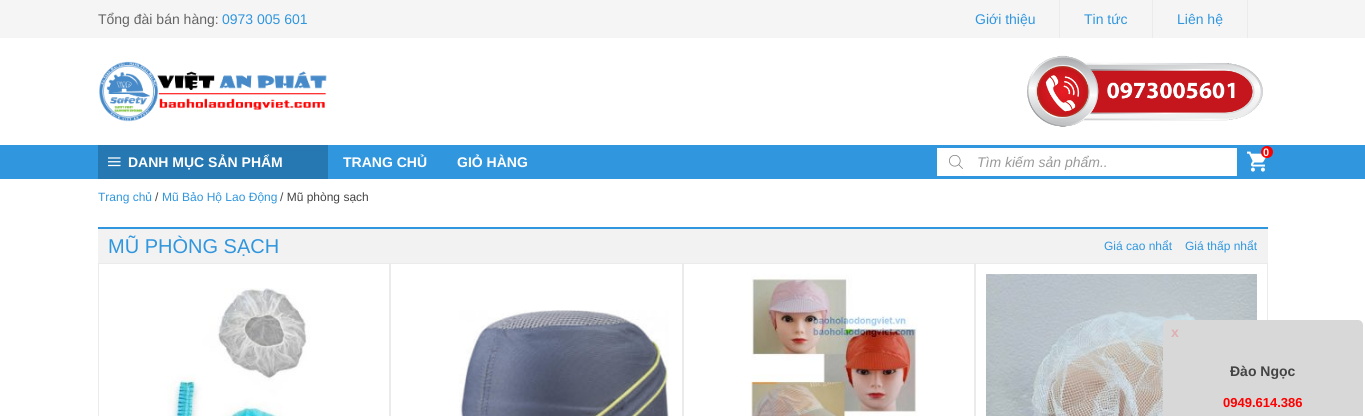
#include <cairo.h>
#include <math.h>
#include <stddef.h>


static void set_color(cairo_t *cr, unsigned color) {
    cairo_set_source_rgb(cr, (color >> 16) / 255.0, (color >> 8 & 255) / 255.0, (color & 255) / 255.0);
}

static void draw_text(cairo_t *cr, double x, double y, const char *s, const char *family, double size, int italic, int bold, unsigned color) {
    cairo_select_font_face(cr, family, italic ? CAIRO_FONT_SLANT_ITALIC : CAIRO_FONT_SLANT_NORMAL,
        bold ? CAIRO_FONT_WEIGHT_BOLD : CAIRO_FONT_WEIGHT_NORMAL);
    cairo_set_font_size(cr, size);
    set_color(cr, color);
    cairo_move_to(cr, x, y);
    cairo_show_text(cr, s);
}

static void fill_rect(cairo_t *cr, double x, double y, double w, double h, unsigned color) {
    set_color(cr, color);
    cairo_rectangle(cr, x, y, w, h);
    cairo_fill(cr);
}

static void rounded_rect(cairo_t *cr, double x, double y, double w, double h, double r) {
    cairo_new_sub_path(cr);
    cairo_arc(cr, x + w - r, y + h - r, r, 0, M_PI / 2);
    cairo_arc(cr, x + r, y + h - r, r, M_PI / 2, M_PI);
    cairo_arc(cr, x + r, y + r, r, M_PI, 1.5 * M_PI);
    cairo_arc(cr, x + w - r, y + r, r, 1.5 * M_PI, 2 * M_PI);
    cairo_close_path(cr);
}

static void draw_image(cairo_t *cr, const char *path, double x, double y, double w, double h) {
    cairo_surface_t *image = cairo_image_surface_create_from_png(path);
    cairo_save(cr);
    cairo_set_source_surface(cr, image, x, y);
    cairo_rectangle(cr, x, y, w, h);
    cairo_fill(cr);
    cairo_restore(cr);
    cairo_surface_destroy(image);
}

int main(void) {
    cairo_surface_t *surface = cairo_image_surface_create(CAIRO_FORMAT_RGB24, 1365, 416);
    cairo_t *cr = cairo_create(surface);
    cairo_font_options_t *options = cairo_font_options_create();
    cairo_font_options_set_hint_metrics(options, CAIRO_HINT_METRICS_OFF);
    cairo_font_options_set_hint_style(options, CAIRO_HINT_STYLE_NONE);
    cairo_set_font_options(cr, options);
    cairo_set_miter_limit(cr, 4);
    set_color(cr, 0xFFFFFF);
    cairo_paint(cr);
    fill_rect(cr, 0, 0, 1365, 38, 0xF5F5F5);
    draw_text(cr, 98, 24, "Tổng đài bán hàng:", "Liberation Sans", 14, 0, 0, 0x646464);
    draw_text(cr, 222, 24, "0973 005 601", "Liberation Sans", 14, 0, 0, 0x3096DE);
    draw_text(cr, 975, 24, "Giới thiệu", "Liberation Sans", 14, 0, 0, 0x3096DE);
    fill_rect(cr, 1059, 0, 1, 38, 0xEBEBEB);
    draw_text(cr, 1084, 24, "Tin tức", "Liberation Sans", 14, 0, 0, 0x3096DE);
    fill_rect(cr, 1152, 0, 1, 38, 0xEBEBEB);
    draw_text(cr, 1177, 24, "Liên hệ", "Liberation Sans", 14, 0, 0, 0x3096DE);
    fill_rect(cr, 1247, 0, 1, 38, 0xEBEBEB);
    draw_image(cr, "assets/img1.png", 99, 61, 228, 61);
    draw_image(cr, "assets/img2.png", 1027, 55, 236, 72);
    fill_rect(cr, 0, 145, 1365, 34, 0x3096DE);
    draw_image(cr, "assets/img3.png", 1247, 151, 19, 21);
    set_color(cr, 0xFF0000);
    cairo_arc(cr, 1267, 152, 6, 0, 2 * M_PI);
    cairo_fill(cr);
    draw_text(cr, 1263, 156, "0", "Liberation Sans", 11, 0, 1, 0xFFFFFF);
    fill_rect(cr, 98, 145, 230, 34, 0x2678B2);
    draw_image(cr, "assets/img4.png", 108, 157, 13, 10);
    draw_text(cr, 128, 167, "DANH MỤC SẢN PHẨM", "Liberation Sans", 14, 0, 1, 0xFFFFFF);
    draw_text(cr, 343, 167, "TRANG CHỦ", "Liberation Sans", 14, 0, 1, 0xFFFFFF);
    draw_text(cr, 457, 167, "GIỎ HÀNG", "Liberation Sans", 14, 0, 1, 0xFFFFFF);
    fill_rect(cr, 937, 148, 300, 28, 0xFFFFFF);
    draw_image(cr, "assets/img5.png", 949, 155, 14, 14);
    draw_text(cr, 977, 167, "Tìm kiếm sản phẩm..", "Liberation Sans", 14, 1, 0, 0x999999);
    draw_text(cr, 98, 201, "Trang chủ", "Liberation Sans", 12, 0, 0, 0x3096DE);
    draw_text(cr, 155, 201, "/", "Liberation Sans", 12, 0, 0, 0x444444);
    draw_text(cr, 162, 201, "Mũ Bảo Hộ Lao Động", "Liberation Sans", 12, 0, 0, 0x3096DE);
    draw_text(cr, 280, 201, "/ Mũ phòng sạch", "Liberation Sans", 12, 0, 0, 0x444444);
    fill_rect(cr, 98, 229, 1170, 34, 0xF2F2F2);
    fill_rect(cr, 98, 227, 1170, 2, 0x3096DE);
    draw_text(cr, 108, 253, "MŨ PHÒNG SẠCH", "Liberation Sans", 20, 0, 0, 0x3096DE);
    draw_text(cr, 1104, 250, "Giá cao nhẩt", "Liberation Sans", 12, 0, 0, 0x3096DE);
    draw_text(cr, 1185, 250, "Giá thấp nhẩt", "Liberation Sans", 12, 0, 0, 0x3096DE);
    cairo_rectangle(cr, 98.5, 263.5, 291, 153);
    set_color(cr, 0xEBEBEB);
    cairo_set_line_width(cr, 1);
    cairo_stroke(cr);
    draw_image(cr, "assets/img6.png", 167, 288, 143, 128);
    cairo_rectangle(cr, 390.5, 263.5, 292, 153);
    cairo_stroke(cr);
    draw_image(cr, "assets/img7.png", 459, 310, 210, 106);
    cairo_rectangle(cr, 683.5, 263.5, 291, 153);
    cairo_stroke(cr);
    draw_image(cr, "assets/img8.png", 750, 274, 168, 142);
    cairo_rectangle(cr, 975.5, 263.5, 292, 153);
    cairo_stroke(cr);
    draw_image(cr, "assets/img9.png", 986, 274, 271, 142);
    set_color(cr, 0xD8D8D8);
    rounded_rect(cr, 1163, 320, 200, 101, 5);
    cairo_fill(cr);
    draw_text(cr, 1171, 337, "x", "Liberation Sans", 14, 0, 1, 0xDFAFB2);
    draw_text(cr, 1230, 376, "Đào Ngọc", "Liberation Sans", 14, 0, 1, 0x444444);
    draw_text(cr, 1223, 407, "0949.614.386", "Liberation Sans", 13, 0, 1, 0xFF0000);
    cairo_surface_write_to_png(surface, "output.png");
    cairo_font_options_destroy(options);
    cairo_destroy(cr);
    cairo_surface_destroy(surface);
    return 0;
}
